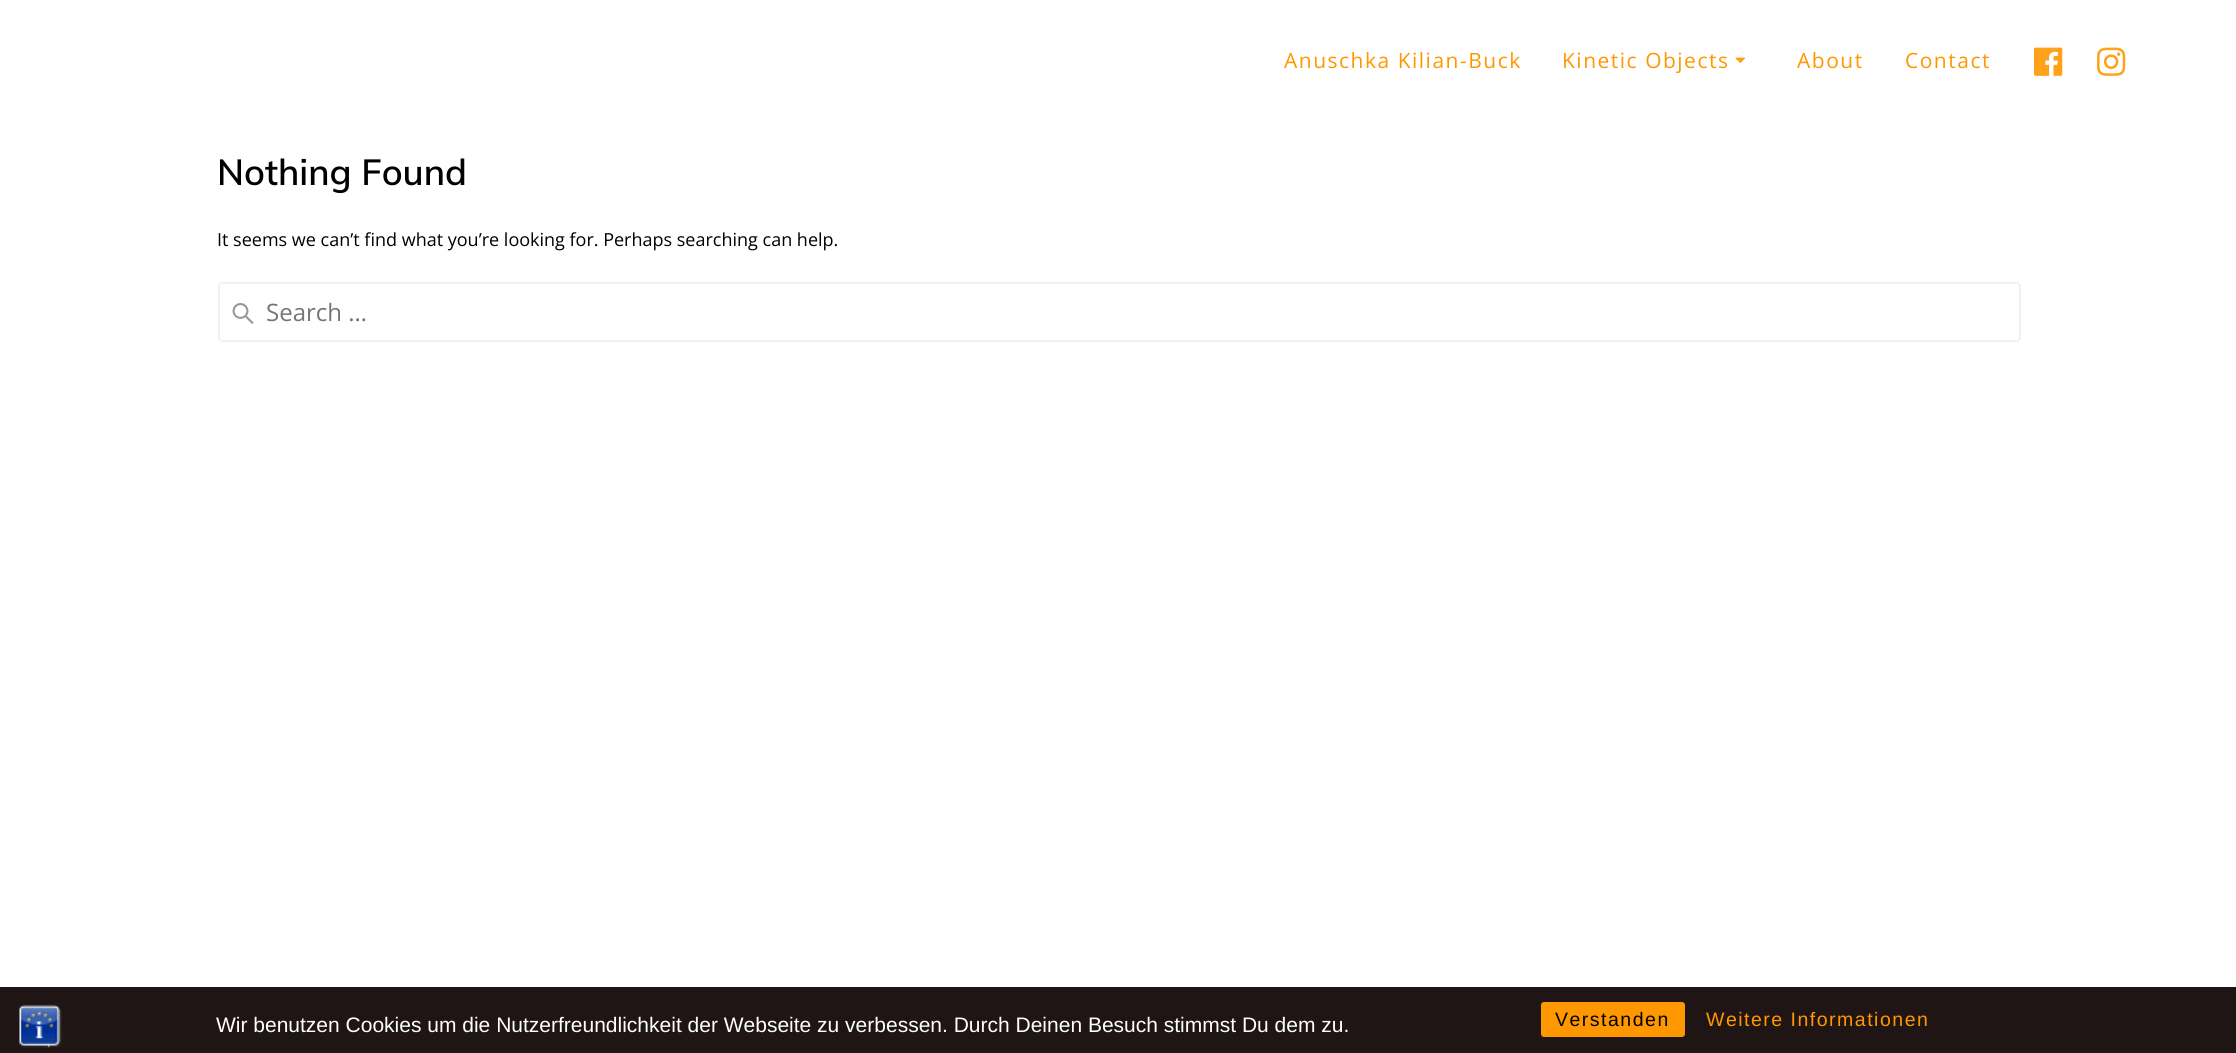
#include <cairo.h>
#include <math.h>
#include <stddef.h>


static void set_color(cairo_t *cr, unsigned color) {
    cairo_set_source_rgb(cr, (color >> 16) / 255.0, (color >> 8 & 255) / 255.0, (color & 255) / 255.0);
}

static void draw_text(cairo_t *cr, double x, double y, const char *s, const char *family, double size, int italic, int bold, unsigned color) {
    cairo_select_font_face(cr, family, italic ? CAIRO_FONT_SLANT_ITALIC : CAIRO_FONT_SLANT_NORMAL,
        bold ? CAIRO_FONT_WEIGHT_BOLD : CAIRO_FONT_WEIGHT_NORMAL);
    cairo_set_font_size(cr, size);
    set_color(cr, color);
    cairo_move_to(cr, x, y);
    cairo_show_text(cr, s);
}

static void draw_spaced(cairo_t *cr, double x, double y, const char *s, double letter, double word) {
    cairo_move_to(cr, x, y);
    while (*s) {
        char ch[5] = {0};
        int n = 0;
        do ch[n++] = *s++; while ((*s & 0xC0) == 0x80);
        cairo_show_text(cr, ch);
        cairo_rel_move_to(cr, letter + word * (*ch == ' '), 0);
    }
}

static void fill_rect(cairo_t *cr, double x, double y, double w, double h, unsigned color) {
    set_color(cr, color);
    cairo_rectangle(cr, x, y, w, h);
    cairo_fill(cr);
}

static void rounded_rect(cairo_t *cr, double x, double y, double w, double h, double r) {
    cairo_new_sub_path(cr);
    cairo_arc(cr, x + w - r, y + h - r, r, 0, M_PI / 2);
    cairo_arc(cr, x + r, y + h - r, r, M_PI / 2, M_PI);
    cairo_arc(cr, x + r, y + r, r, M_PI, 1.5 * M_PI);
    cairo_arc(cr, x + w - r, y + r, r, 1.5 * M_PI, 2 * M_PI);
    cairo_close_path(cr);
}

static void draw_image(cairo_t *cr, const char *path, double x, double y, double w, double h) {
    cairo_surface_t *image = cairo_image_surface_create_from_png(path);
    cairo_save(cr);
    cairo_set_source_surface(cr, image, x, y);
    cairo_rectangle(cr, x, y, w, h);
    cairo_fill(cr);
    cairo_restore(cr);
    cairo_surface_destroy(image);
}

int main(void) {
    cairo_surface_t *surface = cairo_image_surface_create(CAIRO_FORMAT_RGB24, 2236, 1053);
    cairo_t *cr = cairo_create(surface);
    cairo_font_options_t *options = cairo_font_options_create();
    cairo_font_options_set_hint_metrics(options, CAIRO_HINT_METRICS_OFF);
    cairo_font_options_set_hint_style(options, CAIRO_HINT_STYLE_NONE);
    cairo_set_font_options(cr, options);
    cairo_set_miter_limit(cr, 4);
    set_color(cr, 0xFFFFFF);
    cairo_paint(cr);
    cairo_select_font_face(cr, "Open Sans", CAIRO_FONT_SLANT_NORMAL, CAIRO_FONT_WEIGHT_NORMAL);
    cairo_set_font_size(cr, 21);
    set_color(cr, 0xFF9800);
    draw_spaced(cr, 1284, 68, "Anuschka Kilian-Buck", 1.5, 0);
    draw_spaced(cr, 1562, 68, "Kinetic Objects", 1.5, 0);
    draw_image(cr, "assets/img1.png", 1735, 57, 10, 6);
    draw_spaced(cr, 1797, 68, "About", 1.5, 0);
    draw_spaced(cr, 1905, 68, "Contact", 1.5, 0);
    draw_image(cr, "assets/img2.png", 2034, 47, 29, 29);
    draw_image(cr, "assets/img3.png", 2097, 47, 29, 29);
    draw_text(cr, 217, 185, "Nothing Found", "Muli SemiBold", 36, 0, 0, 0x000000);
    draw_text(cr, 217, 246, "It seems we can’t find what you’re looking for. Perhaps searching can help.", "Open Sans", 18, 0, 0, 0x000000);
    draw_image(cr, "assets/img4.png", 232, 303, 22, 21);
    rounded_rect(cr, 219, 283, 1801, 58, 4);
    set_color(cr, 0xF1F1F1);
    cairo_stroke(cr);
    draw_text(cr, 266, 321, "Search …", "Open Sans", 24, 0, 0, 0x757575);
    fill_rect(cr, 0, 987, 2236, 66, 0x1F1514);
    draw_image(cr, "assets/img5.png", 19, 1004, 44, 44);
    draw_text(cr, 216, 1032, "Wir benutzen Cookies um die Nutzerfreundlichkeit der Webseite zu verbessen. Durch Deinen Besuch stimmst Du dem zu.", "Liberation Sans", 21, 0, 0, 0xFFFFFF);
    set_color(cr, 0xFF9800);
    rounded_rect(cr, 1541, 1002, 144, 35, 3);
    cairo_fill(cr);
    cairo_set_font_size(cr, 19.5);
    set_color(cr, 0x000000);
    draw_spaced(cr, 1555, 1026, "Verstanden", 1.5, 0);
    set_color(cr, 0xFF9800);
    draw_spaced(cr, 1706, 1026, "Weitere Informationen", 1.5, 0);
    cairo_surface_write_to_png(surface, "output.png");
    cairo_font_options_destroy(options);
    cairo_destroy(cr);
    cairo_surface_destroy(surface);
    return 0;
}
